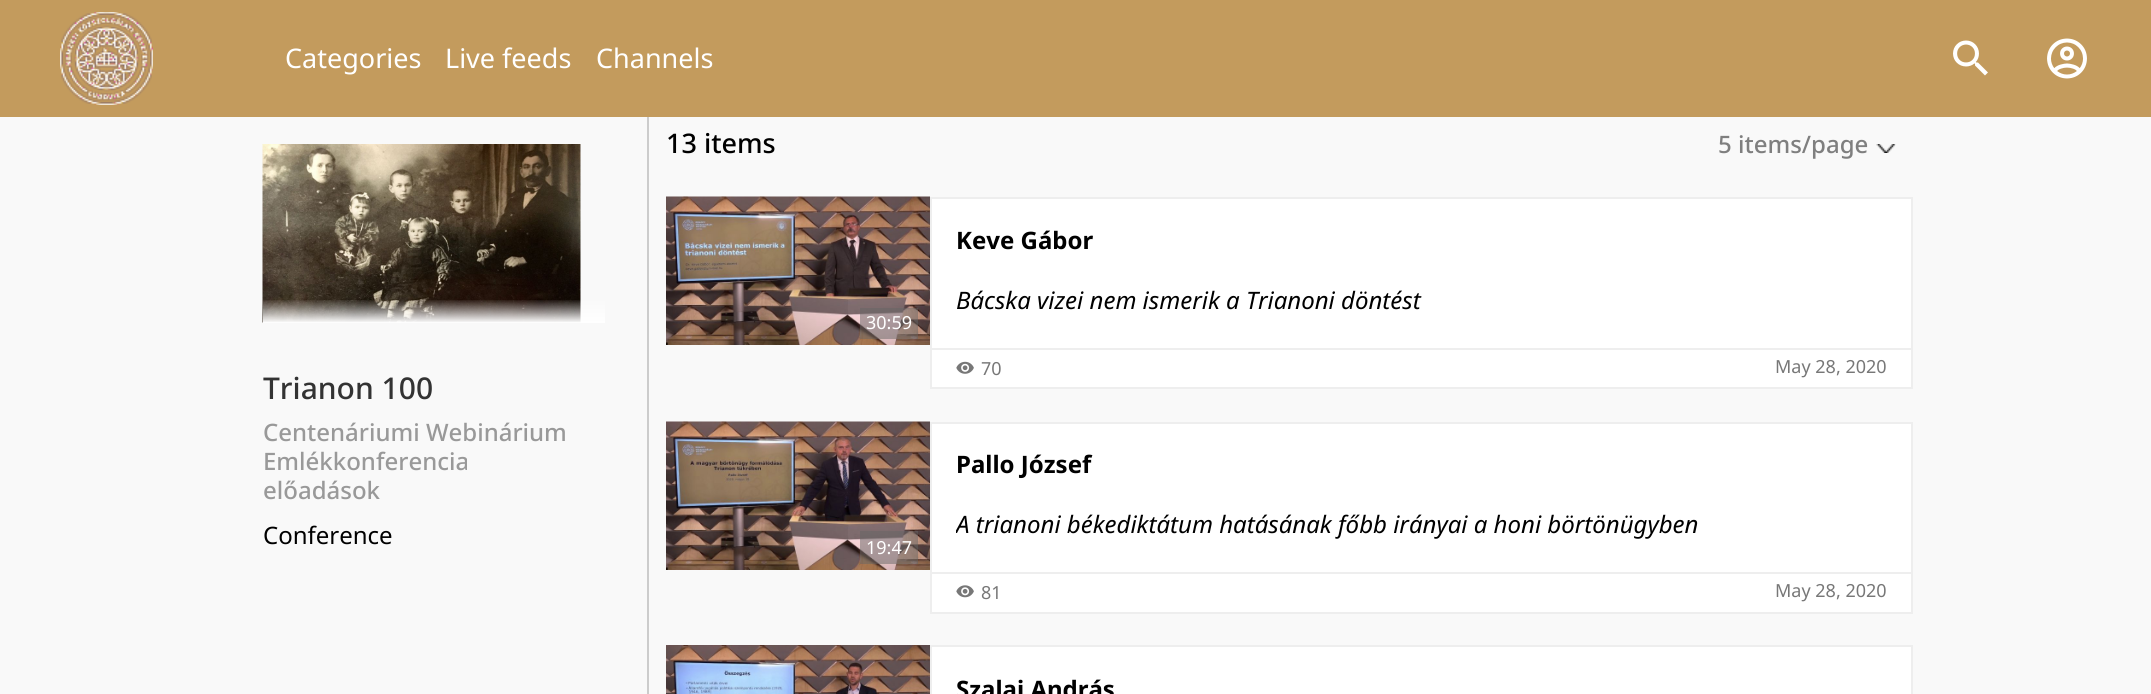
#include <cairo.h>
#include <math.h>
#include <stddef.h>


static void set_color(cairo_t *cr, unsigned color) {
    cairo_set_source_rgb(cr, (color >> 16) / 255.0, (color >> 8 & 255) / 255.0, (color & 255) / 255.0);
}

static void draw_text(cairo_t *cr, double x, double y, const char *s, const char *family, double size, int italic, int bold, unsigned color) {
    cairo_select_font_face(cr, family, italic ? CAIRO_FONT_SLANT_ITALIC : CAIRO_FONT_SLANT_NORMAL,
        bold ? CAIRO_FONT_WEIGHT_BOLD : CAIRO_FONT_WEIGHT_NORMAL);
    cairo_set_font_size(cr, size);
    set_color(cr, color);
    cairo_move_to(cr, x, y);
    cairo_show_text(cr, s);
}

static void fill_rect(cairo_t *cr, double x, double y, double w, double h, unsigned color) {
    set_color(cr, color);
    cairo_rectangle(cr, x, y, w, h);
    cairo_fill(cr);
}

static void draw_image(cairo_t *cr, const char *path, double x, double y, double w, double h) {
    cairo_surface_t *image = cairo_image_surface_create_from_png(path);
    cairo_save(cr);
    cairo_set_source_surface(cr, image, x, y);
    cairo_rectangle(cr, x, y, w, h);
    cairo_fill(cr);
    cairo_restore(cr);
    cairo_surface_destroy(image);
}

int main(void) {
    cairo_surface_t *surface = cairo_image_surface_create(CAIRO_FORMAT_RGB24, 2151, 694);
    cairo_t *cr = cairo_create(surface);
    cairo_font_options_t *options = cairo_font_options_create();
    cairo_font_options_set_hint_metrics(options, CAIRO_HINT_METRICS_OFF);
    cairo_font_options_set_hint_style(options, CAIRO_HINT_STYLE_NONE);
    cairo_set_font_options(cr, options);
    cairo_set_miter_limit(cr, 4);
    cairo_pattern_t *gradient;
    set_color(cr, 0xF9F9F9);
    cairo_paint(cr);
    fill_rect(cr, 0, 0, 2151, 117, 0xC39B5D);
    draw_image(cr, "assets/img1.png", 60, 12, 93, 93);
    draw_text(cr, 285, 68, "Categories", "Noto Sans", 27, 0, 0, 0xFFFFFF);
    draw_text(cr, 445, 68, "Live feeds", "Noto Sans", 27, 0, 0, 0xFFFFFF);
    draw_text(cr, 596, 68, "Channels", "Noto Sans", 27, 0, 0, 0xFFFFFF);
    draw_image(cr, "assets/img2.png", 1953, 40, 35, 36);
    draw_image(cr, "assets/img3.png", 2047, 38, 40, 41);
    fill_rect(cr, 647, 117, 2, 577, 0xCCCCCC);
    draw_image(cr, "assets/img4.png", 262, 144, 319, 179);
    gradient = cairo_pattern_create_linear(434, 323, 434, 293);
    cairo_pattern_add_color_stop_rgba(gradient, 0, 1, 1, 1, 1);
    cairo_pattern_add_color_stop_rgba(gradient, 0.8, 1, 1, 1, 0);
    cairo_set_source(cr, gradient);
    cairo_pattern_destroy(gradient);
    cairo_rectangle(cr, 263, 300, 342, 23);
    cairo_fill(cr);
    draw_text(cr, 263, 399, "Trianon 100", "Noto Sans Medium", 30, 0, 0, 0x333333);
    draw_text(cr, 263, 441, "Centenáriumi Webinárium", "Noto Sans Medium", 24, 0, 0, 0x999999);
    draw_text(cr, 263, 470, "Emlékkonferencia", "Noto Sans Medium", 24, 0, 0, 0x999999);
    draw_text(cr, 263, 499, "előadások", "Noto Sans Medium", 24, 0, 0, 0x999999);
    draw_text(cr, 263, 544, "Conference", "Noto Sans", 24, 0, 0, 0x000000);
    draw_text(cr, 666, 153, "13 items", "Noto Sans Medium", 27, 0, 0, 0x000000);
    draw_text(cr, 1718, 153, "5 items/page", "Noto Sans Medium", 24, 0, 0, 0x7F7F7F);
    draw_image(cr, "assets/img5.png", 1876, 144, 20, 9);
    draw_image(cr, "assets/img6.png", 666, 196, 264, 149);
    cairo_set_source_rgba(cr, 0.4, 0.4, 0.4, 0.5);
    cairo_rectangle(cr, 860, 308, 58, 31);
    cairo_fill(cr);
    draw_text(cr, 866, 329, "30:59", "Noto Sans", 18, 0, 0, 0xFFFFFF);
    fill_rect(cr, 932, 199, 979, 149, 0xFFFFFF);
    cairo_rectangle(cr, 931, 198, 981, 187);
    set_color(cr, 0xEEEEEE);
    cairo_stroke(cr);
    draw_text(cr, 956, 249, "Keve Gábor", "Noto Sans", 24, 0, 1, 0x000000);
    draw_text(cr, 956, 309, "Bácska vizei nem ismerik a Trianoni döntést", "Noto Sans", 24, 1, 0, 0x000000);
    set_color(cr, 0xFFFFFF);
    cairo_rectangle(cr, 931, 349, 981, 39);
    cairo_fill_preserve(cr);
    set_color(cr, 0xEEEEEE);
    cairo_stroke(cr);
    draw_image(cr, "assets/img7.png", 956, 361, 18, 13);
    draw_text(cr, 981, 375, "70", "Noto Sans", 18, 0, 0, 0x777777);
    draw_text(cr, 1775, 373, "May 28, 2020", "Noto Sans", 18, 0, 0, 0x777777);
    draw_image(cr, "assets/img8.png", 666, 421, 264, 149);
    cairo_set_source_rgba(cr, 0.4, 0.4, 0.4, 0.5);
    cairo_rectangle(cr, 860, 531, 58, 33);
    cairo_fill(cr);
    draw_text(cr, 866, 554, "19:47", "Noto Sans", 18, 0, 0, 0xFFFFFF);
    fill_rect(cr, 932, 424, 979, 148, 0xFFFFFF);
    cairo_rectangle(cr, 931, 423, 981, 185);
    set_color(cr, 0xEEEEEE);
    cairo_stroke(cr);
    draw_text(cr, 956, 473, "Pallo József", "Noto Sans", 24, 0, 1, 0x000000);
    cairo_save(cr);
    cairo_rectangle(cr, 956, 507, 931, 36);
    cairo_clip(cr);
    draw_text(cr, 956, 533, "A trianoni békediktátum hatásának főbb irányai a honi börtönügyben", "Noto Sans", 24, 1, 0, 0x000000);
    cairo_restore(cr);
    set_color(cr, 0xFFFFFF);
    cairo_rectangle(cr, 931, 573, 981, 40);
    cairo_fill_preserve(cr);
    set_color(cr, 0xEEEEEE);
    cairo_stroke(cr);
    draw_image(cr, "assets/img9.png", 956, 585, 18, 13);
    draw_text(cr, 981, 599, "81", "Noto Sans", 18, 0, 0, 0x777777);
    draw_text(cr, 1775, 597, "May 28, 2020", "Noto Sans", 18, 0, 0, 0x777777);
    draw_image(cr, "assets/img10.png", 666, 645, 264, 49);
    set_color(cr, 0xFFFFFF);
    cairo_rectangle(cr, 931, 646, 981, 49);
    cairo_fill_preserve(cr);
    set_color(cr, 0xEEEEEE);
    cairo_stroke(cr);
    draw_text(cr, 956, 698, "Szalai András", "Noto Sans", 24, 0, 1, 0x000000);
    cairo_surface_write_to_png(surface, "output.png");
    cairo_font_options_destroy(options);
    cairo_destroy(cr);
    cairo_surface_destroy(surface);
    return 0;
}
